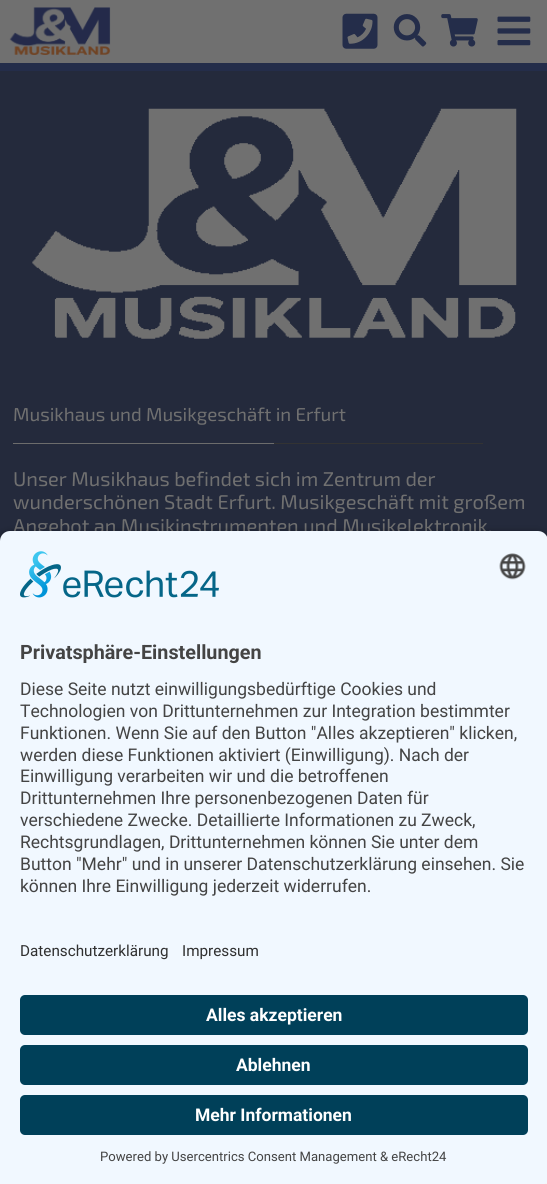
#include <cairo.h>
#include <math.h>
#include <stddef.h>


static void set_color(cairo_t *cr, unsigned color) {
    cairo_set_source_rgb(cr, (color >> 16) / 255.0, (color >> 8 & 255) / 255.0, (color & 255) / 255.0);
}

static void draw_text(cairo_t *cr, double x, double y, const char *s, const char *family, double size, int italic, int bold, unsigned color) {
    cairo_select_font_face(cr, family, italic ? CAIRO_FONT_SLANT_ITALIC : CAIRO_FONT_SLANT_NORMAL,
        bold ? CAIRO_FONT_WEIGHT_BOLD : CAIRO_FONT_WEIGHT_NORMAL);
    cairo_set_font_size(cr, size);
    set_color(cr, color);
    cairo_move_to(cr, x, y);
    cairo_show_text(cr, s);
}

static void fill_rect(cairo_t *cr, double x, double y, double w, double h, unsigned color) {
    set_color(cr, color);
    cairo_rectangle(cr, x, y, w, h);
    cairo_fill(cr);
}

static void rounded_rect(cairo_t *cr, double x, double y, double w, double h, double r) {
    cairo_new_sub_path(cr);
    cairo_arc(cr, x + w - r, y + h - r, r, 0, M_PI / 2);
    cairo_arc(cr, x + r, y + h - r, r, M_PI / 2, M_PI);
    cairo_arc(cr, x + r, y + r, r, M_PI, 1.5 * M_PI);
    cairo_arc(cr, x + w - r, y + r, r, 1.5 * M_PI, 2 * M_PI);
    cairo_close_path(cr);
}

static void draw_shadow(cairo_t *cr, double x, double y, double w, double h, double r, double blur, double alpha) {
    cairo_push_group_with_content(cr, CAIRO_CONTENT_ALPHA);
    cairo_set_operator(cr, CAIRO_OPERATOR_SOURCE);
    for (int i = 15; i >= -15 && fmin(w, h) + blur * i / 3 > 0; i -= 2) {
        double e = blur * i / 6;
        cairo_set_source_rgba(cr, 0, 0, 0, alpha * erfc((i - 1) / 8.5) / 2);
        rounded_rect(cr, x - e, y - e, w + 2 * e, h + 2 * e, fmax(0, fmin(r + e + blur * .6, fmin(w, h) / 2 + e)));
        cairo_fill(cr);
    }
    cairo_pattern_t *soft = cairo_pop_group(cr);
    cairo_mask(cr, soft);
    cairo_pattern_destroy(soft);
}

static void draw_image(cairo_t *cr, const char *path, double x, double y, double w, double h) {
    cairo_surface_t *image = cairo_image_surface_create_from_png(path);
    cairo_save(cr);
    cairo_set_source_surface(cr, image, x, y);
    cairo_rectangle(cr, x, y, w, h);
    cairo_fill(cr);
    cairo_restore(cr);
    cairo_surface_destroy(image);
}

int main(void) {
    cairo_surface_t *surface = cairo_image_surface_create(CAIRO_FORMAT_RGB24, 547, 1184);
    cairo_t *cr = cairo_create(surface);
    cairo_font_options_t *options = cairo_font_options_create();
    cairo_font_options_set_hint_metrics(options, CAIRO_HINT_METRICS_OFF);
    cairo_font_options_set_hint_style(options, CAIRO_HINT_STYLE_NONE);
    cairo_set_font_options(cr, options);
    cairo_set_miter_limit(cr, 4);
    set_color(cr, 0x242D4A);
    cairo_paint(cr);
    fill_rect(cr, 0, 0, 547, 63, 0x707070);
    draw_image(cr, "assets/img1.png", 9, 7, 102, 48);
    draw_image(cr, "assets/img2.png", 497, 16, 34, 30);
    draw_image(cr, "assets/img3.png", 342, 13, 36, 36);
    draw_image(cr, "assets/img4.png", 393, 14, 34, 33);
    draw_image(cr, "assets/img5.png", 441, 14, 37, 33);
    fill_rect(cr, 0, 71, 547, 470, 0x242A3C);
    draw_image(cr, "assets/img6.png", 32, 108, 485, 231);
    fill_rect(cr, 274, 443, 209, 1, 0x333333);
    draw_text(cr, 13, 421, "Musikhaus und Musikgeschäft in Erfurt", "Exo 2", 18.75, 0, 0, 0x707070);
    fill_rect(cr, 13, 443, 261, 1, 0x6C6C6C);
    draw_text(cr, 13, 486, "Unser Musikhaus befindet sich im Zentrum der", "Exo 2", 20, 0, 0, 0x707070);
    draw_text(cr, 13, 509, "wunderschönen Stadt Erfurt. Musikgeschäft mit großem", "Exo 2", 20, 0, 0, 0x707070);
    draw_text(cr, 13, 533, "Angebot an Musikinstrumenten und Musikelektronik.", "Exo 2", 20, 0, 0, 0x707070);
    set_color(cr, 0x000000);
    draw_shadow(cr, 0, 535, 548, 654, 10, 4.5, 0.8);
    set_color(cr, 0xF1F8FF);
    cairo_new_path(cr);
    cairo_move_to(cr, 10, 531);
    cairo_line_to(cr, 538, 531);
    cairo_curve_to(cr, 543.5, 531, 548, 535.5, 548, 541);
    cairo_line_to(cr, 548, 923);
    cairo_line_to(cr, 0, 923);
    cairo_line_to(cr, 0, 541);
    cairo_curve_to(cr, 0, 535.5, 4.5, 531, 10, 531);
    cairo_close_path(cr);
    cairo_fill(cr);
    draw_image(cr, "assets/img7.png", 20, 551, 199, 47);
    draw_image(cr, "assets/img8.png", 499, 553, 27, 27);
    draw_text(cr, 20, 659, "Privatsphäre-Einstellungen", "Roboto", 19.75, 0, 1, 0x444444);
    draw_text(cr, 20, 695, "Diese Seite nutzt einwilligungsbedürftige Cookies und", "Roboto", 17.5, 0, 0, 0x444444);
    draw_text(cr, 20, 717, "Technologien von Drittunternehmen zur Integration bestimmter", "Roboto", 17.5, 0, 0, 0x444444);
    draw_text(cr, 20, 739, "Funktionen. Wenn Sie auf den Button \"Alles akzeptieren\" klicken,", "Roboto", 17.5, 0, 0, 0x444444);
    draw_text(cr, 20, 761, "werden diese Funktionen aktiviert (Einwilligung). Nach der", "Roboto", 17.5, 0, 0, 0x444444);
    draw_text(cr, 20, 782, "Einwilligung verarbeiten wir und die betroffenen", "Roboto", 17.5, 0, 0, 0x444444);
    draw_text(cr, 20, 804, "Drittunternehmen Ihre personenbezogenen Daten für", "Roboto", 17.5, 0, 0, 0x444444);
    draw_text(cr, 20, 826, "verschiedene Zwecke. Detaillierte Informationen zu Zweck,", "Roboto", 17.5, 0, 0, 0x444444);
    draw_text(cr, 20, 848, "Rechtsgrundlagen, Drittunternehmen können Sie unter dem", "Roboto", 17.5, 0, 0, 0x444444);
    draw_text(cr, 20, 870, "Button \"Mehr\" und in unserer Datenschutzerklärung einsehen. Sie", "Roboto", 17.5, 0, 0, 0x444444);
    draw_text(cr, 20, 892, "können Ihre Einwilligung jederzeit widerrufen.", "Roboto", 17.5, 0, 0, 0x444444);
    fill_rect(cr, 0, 923, 547, 261, 0xF1F8FF);
    draw_text(cr, 20, 956, "Datenschutzerklärung", "Roboto", 15.25, 0, 0, 0x303030);
    draw_text(cr, 182, 956, "Impressum", "Roboto", 15.25, 0, 0, 0x303030);
    set_color(cr, 0x004059);
    rounded_rect(cr, 20, 995, 508, 40, 5);
    cairo_fill(cr);
    draw_text(cr, 206, 1021, "Alles akzeptieren", "Roboto", 17.5, 0, 1, 0xFFFFFF);
    set_color(cr, 0x004059);
    rounded_rect(cr, 20, 1045, 508, 40, 5);
    cairo_fill(cr);
    draw_text(cr, 236, 1071, "Ablehnen", "Roboto", 17.5, 0, 1, 0xFFFFFF);
    set_color(cr, 0x004059);
    rounded_rect(cr, 20, 1095, 508, 40, 5);
    cairo_fill(cr);
    draw_text(cr, 195, 1121, "Mehr Informationen", "Roboto", 17.5, 0, 1, 0xFFFFFF);
    draw_text(cr, 100, 1161, "Powered by Usercentrics Consent Management & eRecht24", "Roboto", 13.1, 0, 0, 0x444444);
    fill_rect(cr, 545, 1183, 2, 1, 0xF5F5F5);
    cairo_surface_write_to_png(surface, "output.png");
    cairo_font_options_destroy(options);
    cairo_destroy(cr);
    cairo_surface_destroy(surface);
    return 0;
}
